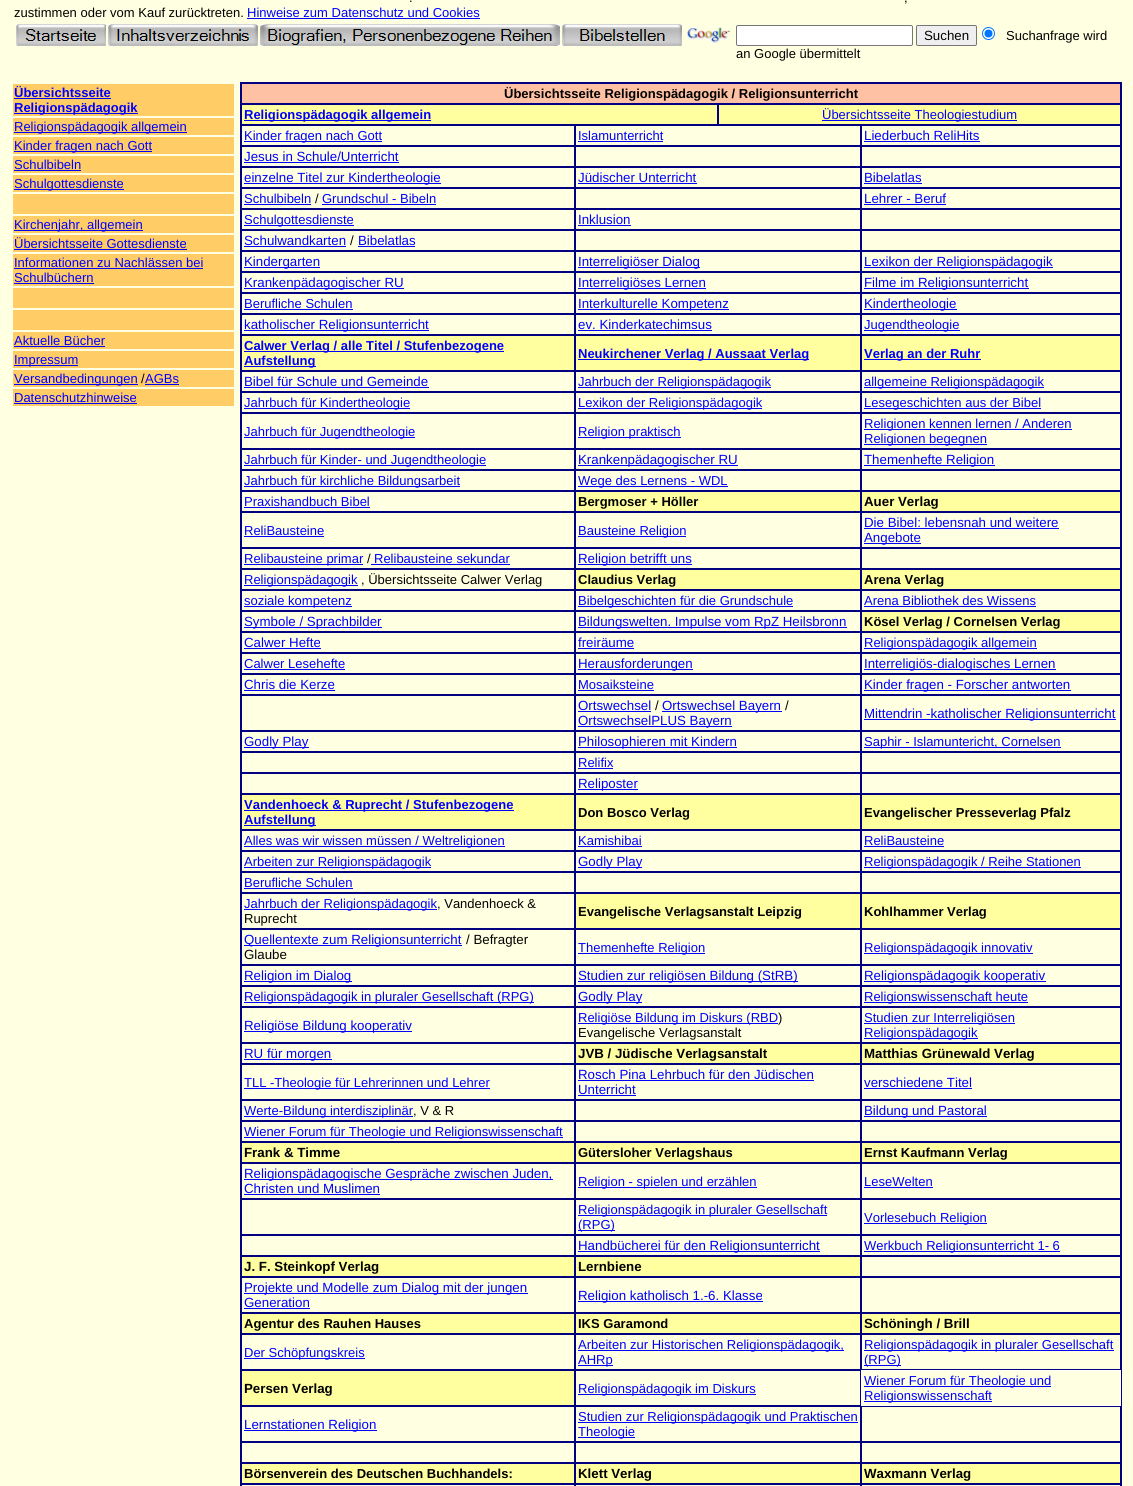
#include <cairo.h>
#include <math.h>
#include <stddef.h>


static void set_color(cairo_t *cr, unsigned color) {
    cairo_set_source_rgb(cr, (color >> 16) / 255.0, (color >> 8 & 255) / 255.0, (color & 255) / 255.0);
}

static void draw_text(cairo_t *cr, double x, double y, const char *s, const char *family, double size, int italic, int bold, unsigned color) {
    cairo_select_font_face(cr, family, italic ? CAIRO_FONT_SLANT_ITALIC : CAIRO_FONT_SLANT_NORMAL,
        bold ? CAIRO_FONT_WEIGHT_BOLD : CAIRO_FONT_WEIGHT_NORMAL);
    cairo_set_font_size(cr, size);
    set_color(cr, color);
    cairo_move_to(cr, x, y);
    cairo_show_text(cr, s);
}

static void fill_rect(cairo_t *cr, double x, double y, double w, double h, unsigned color) {
    set_color(cr, color);
    cairo_rectangle(cr, x, y, w, h);
    cairo_fill(cr);
}

static void rounded_rect(cairo_t *cr, double x, double y, double w, double h, double r) {
    cairo_new_sub_path(cr);
    cairo_arc(cr, x + w - r, y + h - r, r, 0, M_PI / 2);
    cairo_arc(cr, x + r, y + h - r, r, M_PI / 2, M_PI);
    cairo_arc(cr, x + r, y + r, r, M_PI, 1.5 * M_PI);
    cairo_arc(cr, x + w - r, y + r, r, 1.5 * M_PI, 2 * M_PI);
    cairo_close_path(cr);
}

static void draw_image(cairo_t *cr, const char *path, double x, double y, double w, double h) {
    cairo_surface_t *image = cairo_image_surface_create_from_png(path);
    cairo_save(cr);
    cairo_set_source_surface(cr, image, x, y);
    cairo_rectangle(cr, x, y, w, h);
    cairo_fill(cr);
    cairo_restore(cr);
    cairo_surface_destroy(image);
}

int main(void) {
    cairo_surface_t *surface = cairo_image_surface_create(CAIRO_FORMAT_RGB24, 1133, 1486);
    cairo_t *cr = cairo_create(surface);
    cairo_font_options_t *options = cairo_font_options_create();
    cairo_font_options_set_hint_metrics(options, CAIRO_HINT_METRICS_OFF);
    cairo_font_options_set_hint_style(options, CAIRO_HINT_STYLE_NONE);
    cairo_set_font_options(cr, options);
    cairo_set_miter_limit(cr, 4);
    set_color(cr, 0xFFFFE1);
    cairo_paint(cr);
    draw_text(cr, 409, 2, ".", "Liberation Sans", 13, 0, 0, 0x000000);
    draw_text(cr, 904, 2, ",", "Liberation Sans", 13, 0, 0, 0x000000);
    draw_text(cr, 14, 17, "zustimmen oder vom Kauf zurücktreten.", "Liberation Sans", 13, 0, 0, 0x000000);
    draw_text(cr, 247, 17, "Hinweise zum Datenschutz und Cookies", "Liberation Sans", 13, 0, 0, 0x0000FF);
    fill_rect(cr, 247, 18, 233, 1, 0x0000FF);
    draw_image(cr, "assets/img1.png", 16, 24, 90, 22);
    draw_image(cr, "assets/img2.png", 108, 24, 150, 22);
    draw_image(cr, "assets/img3.png", 260, 24, 300, 22);
    draw_image(cr, "assets/img4.png", 562, 24, 120, 22);
    draw_image(cr, "assets/img5.png", 686, 27, 44, 17);
    set_color(cr, 0xFFFFFF);
    rounded_rect(cr, 736.5, 25.5, 176, 20, 1.5);
    cairo_fill_preserve(cr);
    set_color(cr, 0x767676);
    cairo_set_line_width(cr, 1);
    cairo_stroke(cr);
    set_color(cr, 0xFFFFFF);
    cairo_arc(cr, 988.5, 33.5, 6, 0, 2 * M_PI);
    cairo_fill_preserve(cr);
    set_color(cr, 0x0075FF);
    cairo_stroke(cr);
    cairo_arc(cr, 988.5, 33.5, 4, 0, 2 * M_PI);
    cairo_fill(cr);
    draw_text(cr, 1006, 40, "Suchanfrage wird", "Liberation Sans", 13, 0, 0, 0x000000);
    draw_text(cr, 736, 58, "an Google übermittelt", "Liberation Sans", 13, 0, 0, 0x000000);
    set_color(cr, 0xEFEFEF);
    rounded_rect(cr, 916.5, 25.5, 60, 20, 1.5);
    cairo_fill_preserve(cr);
    set_color(cr, 0x767676);
    cairo_stroke(cr);
    draw_text(cr, 924, 40, "Suchen", "Liberation Sans", 13.3, 0, 0, 0x000000);
    fill_rect(cr, 13, 84, 221, 32, 0xFFCC66);
    draw_text(cr, 14, 97, "Übersichtsseite", "Liberation Sans", 13, 0, 1, 0x0000FF);
    fill_rect(cr, 14, 98, 97, 1, 0x0000FF);
    fill_rect(cr, 14, 113, 124, 1, 0x0000FF);
    draw_text(cr, 14, 112, "Religionspädagogik", "Liberation Sans", 13, 0, 1, 0x0000FF);
    fill_rect(cr, 13, 118, 221, 17, 0xFFCC66);
    fill_rect(cr, 14, 132, 173, 1, 0x0000FF);
    draw_text(cr, 14, 131, "Religionspädagogik allgemein", "Liberation Sans", 13, 0, 0, 0x0000FF);
    fill_rect(cr, 13, 137, 221, 17, 0xFFCC66);
    fill_rect(cr, 14, 151, 138, 1, 0x0000FF);
    draw_text(cr, 14, 150, "Kinder fragen nach Gott", "Liberation Sans", 13, 0, 0, 0x0000FF);
    fill_rect(cr, 13, 156, 221, 17, 0xFFCC66);
    draw_text(cr, 14, 169, "Schulbibeln", "Liberation Sans", 13, 0, 0, 0x0000FF);
    fill_rect(cr, 14, 170, 67, 1, 0x0000FF);
    fill_rect(cr, 13, 175, 221, 17, 0xFFCC66);
    fill_rect(cr, 14, 189, 110, 1, 0x0000FF);
    draw_text(cr, 14, 188, "Schulgottesdienste", "Liberation Sans", 13, 0, 0, 0x0000FF);
    fill_rect(cr, 13, 194, 221, 20, 0xFFCC66);
    fill_rect(cr, 13, 216, 221, 17, 0xFFCC66);
    fill_rect(cr, 14, 230, 129, 1, 0x0000FF);
    draw_text(cr, 14, 229, "Kirchenjahr, allgemein", "Liberation Sans", 13, 0, 0, 0x0000FF);
    fill_rect(cr, 13, 235, 221, 17, 0xFFCC66);
    draw_text(cr, 14, 248, "Übersichtsseite Gottesdienste", "Liberation Sans", 13, 0, 0, 0x0000FF);
    fill_rect(cr, 14, 249, 173, 1, 0x0000FF);
    fill_rect(cr, 13, 254, 221, 32, 0xFFCC66);
    draw_text(cr, 14, 267, "Informationen zu Nachlässen bei", "Liberation Sans", 13, 0, 0, 0x0000FF);
    fill_rect(cr, 14, 268, 189, 1, 0x0000FF);
    draw_text(cr, 14, 282, "Schulbüchern", "Liberation Sans", 13, 0, 0, 0x0000FF);
    fill_rect(cr, 14, 283, 80, 1, 0x0000FF);
    fill_rect(cr, 13, 288, 221, 20, 0xFFCC66);
    fill_rect(cr, 13, 310, 221, 20, 0xFFCC66);
    fill_rect(cr, 13, 332, 221, 17, 0xFFCC66);
    draw_text(cr, 14, 345, "Aktuelle Bücher", "Liberation Sans", 13, 0, 0, 0x0000FF);
    fill_rect(cr, 14, 346, 91, 1, 0x0000FF);
    fill_rect(cr, 13, 351, 221, 17, 0xFFCC66);
    fill_rect(cr, 14, 365, 64, 1, 0x0000FF);
    draw_text(cr, 14, 364, "Impressum", "Liberation Sans", 13, 0, 0, 0x0000FF);
    fill_rect(cr, 13, 370, 221, 17, 0xFFCC66);
    fill_rect(cr, 14, 384, 124, 1, 0x0000FF);
    draw_text(cr, 14, 383, "Versandbedingungen", "Liberation Sans", 13, 0, 0, 0x0000FF);
    draw_text(cr, 141, 383, "/", "Liberation Sans", 13, 0, 0, 0x000000);
    fill_rect(cr, 145, 384, 34, 1, 0x0000FF);
    draw_text(cr, 145, 383, "AGBs", "Liberation Sans", 13, 0, 0, 0x0000FF);
    fill_rect(cr, 13, 389, 221, 17, 0xFFCC66);
    draw_text(cr, 14, 402, "Datenschutzhinweise", "Liberation Sans", 13, 0, 0, 0x0000FF);
    fill_rect(cr, 14, 403, 123, 1, 0x0000FF);
    cairo_rectangle(cr, 240.5, 82.5, 881, 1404);
    set_color(cr, 0x000080);
    cairo_stroke(cr);
    set_color(cr, 0xFFC1A4);
    cairo_rectangle(cr, 241.5, 83.5, 879, 20);
    cairo_fill_preserve(cr);
    set_color(cr, 0x000080);
    cairo_stroke(cr);
    draw_text(cr, 504, 98, "Übersichtsseite Religionspädagogik / Religionsunterricht", "Liberation Sans", 13, 0, 1, 0x000000);
    set_color(cr, 0xFFFF9F);
    cairo_rectangle(cr, 241.5, 104.5, 476, 20);
    cairo_fill_preserve(cr);
    set_color(cr, 0x000080);
    cairo_stroke(cr);
    fill_rect(cr, 244, 120, 187, 1, 0x0000FF);
    draw_text(cr, 244, 119, "Religionspädagogik allgemein", "Liberation Sans", 13, 0, 1, 0x0000FF);
    set_color(cr, 0xFFFF9F);
    cairo_rectangle(cr, 718.5, 104.5, 402, 20);
    cairo_fill_preserve(cr);
    set_color(cr, 0x000080);
    cairo_stroke(cr);
    fill_rect(cr, 822, 120, 195, 1, 0x0000FF);
    draw_text(cr, 822, 119, "Übersichtsseite Theologiestudium", "Liberation Sans", 13, 0, 0, 0x0000FF);
    cairo_rectangle(cr, 241.5, 125.5, 333, 20);
    set_color(cr, 0x000080);
    cairo_stroke(cr);
    fill_rect(cr, 244, 141, 138, 1, 0x0000FF);
    draw_text(cr, 244, 140, "Kinder fragen nach Gott", "Liberation Sans", 13, 0, 0, 0x0000FF);
    cairo_rectangle(cr, 575.5, 125.5, 285, 20);
    set_color(cr, 0x000080);
    cairo_stroke(cr);
    draw_text(cr, 578, 140, "Islamunterricht", "Liberation Sans", 13, 0, 0, 0x0000FF);
    fill_rect(cr, 578, 141, 85, 1, 0x0000FF);
    cairo_rectangle(cr, 861.5, 125.5, 259, 20);
    set_color(cr, 0x000080);
    cairo_stroke(cr);
    draw_text(cr, 864, 140, "Liederbuch ReliHits", "Liberation Sans", 13.3, 0, 0, 0x0000FF);
    fill_rect(cr, 864, 141, 116, 1, 0x0000FF);
    cairo_rectangle(cr, 241.5, 146.5, 333, 20);
    set_color(cr, 0x000080);
    cairo_stroke(cr);
    draw_text(cr, 244, 161, "Jesus in Schule/Unterricht", "Liberation Sans", 13.3, 0, 0, 0x0000FF);
    fill_rect(cr, 244, 162, 155, 1, 0x0000FF);
    cairo_rectangle(cr, 575.5, 146.5, 285, 20);
    set_color(cr, 0x000080);
    cairo_stroke(cr);
    cairo_rectangle(cr, 861.5, 146.5, 259, 20);
    cairo_stroke(cr);
    cairo_rectangle(cr, 241.5, 167.5, 333, 20);
    cairo_stroke(cr);
    fill_rect(cr, 244, 183, 197, 1, 0x0000FF);
    draw_text(cr, 244, 182, "einzelne Titel zur Kindertheologie", "Liberation Sans", 13.3, 0, 0, 0x0000FF);
    cairo_rectangle(cr, 575.5, 167.5, 285, 20);
    set_color(cr, 0x000080);
    cairo_stroke(cr);
    draw_text(cr, 578, 182, "Jüdischer Unterricht", "Liberation Sans", 13.3, 0, 0, 0x0000FF);
    fill_rect(cr, 578, 183, 119, 1, 0x0000FF);
    cairo_rectangle(cr, 861.5, 167.5, 259, 20);
    set_color(cr, 0x000080);
    cairo_stroke(cr);
    draw_text(cr, 864, 182, "Bibelatlas", "Liberation Sans", 13.3, 0, 0, 0x0000FF);
    fill_rect(cr, 864, 183, 58, 1, 0x0000FF);
    cairo_rectangle(cr, 241.5, 188.5, 333, 20);
    set_color(cr, 0x000080);
    cairo_stroke(cr);
    draw_text(cr, 244, 203, "Schulbibeln", "Liberation Sans", 13, 0, 0, 0x0000FF);
    fill_rect(cr, 244, 204, 67, 1, 0x0000FF);
    draw_text(cr, 315, 203, "/", "Liberation Sans", 13, 0, 0, 0x000000);
    draw_text(cr, 322, 203, "Grundschul - Bibeln", "Liberation Sans", 13, 0, 0, 0x0000FF);
    fill_rect(cr, 322, 204, 114, 1, 0x0000FF);
    cairo_rectangle(cr, 575.5, 188.5, 285, 20);
    set_color(cr, 0x000080);
    cairo_stroke(cr);
    cairo_rectangle(cr, 861.5, 188.5, 259, 20);
    cairo_stroke(cr);
    draw_text(cr, 864, 203, "Lehrer - Beruf", "Liberation Sans", 13.3, 0, 0, 0x0000FF);
    fill_rect(cr, 864, 204, 82, 1, 0x0000FF);
    cairo_rectangle(cr, 241.5, 209.5, 333, 20);
    set_color(cr, 0x000080);
    cairo_stroke(cr);
    fill_rect(cr, 244, 225, 110, 1, 0x0000FF);
    draw_text(cr, 244, 224, "Schulgottesdienste", "Liberation Sans", 13, 0, 0, 0x0000FF);
    cairo_rectangle(cr, 575.5, 209.5, 285, 20);
    set_color(cr, 0x000080);
    cairo_stroke(cr);
    draw_text(cr, 578, 224, "Inklusion", "Liberation Sans", 13.3, 0, 0, 0x0000FF);
    fill_rect(cr, 578, 225, 53, 1, 0x0000FF);
    cairo_rectangle(cr, 861.5, 209.5, 259, 20);
    set_color(cr, 0x000080);
    cairo_stroke(cr);
    cairo_rectangle(cr, 241.5, 230.5, 333, 20);
    cairo_stroke(cr);
    draw_text(cr, 244, 245, "Schulwandkarten", "Liberation Sans", 13.3, 0, 0, 0x0000FF);
    fill_rect(cr, 244, 246, 102, 1, 0x0000FF);
    draw_text(cr, 350, 245, "/", "Liberation Sans", 13.3, 0, 0, 0x000000);
    draw_text(cr, 358, 245, "Bibelatlas", "Liberation Sans", 13.3, 0, 0, 0x0000FF);
    fill_rect(cr, 358, 246, 57, 1, 0x0000FF);
    cairo_rectangle(cr, 575.5, 230.5, 285, 20);
    set_color(cr, 0x000080);
    cairo_stroke(cr);
    cairo_rectangle(cr, 861.5, 230.5, 259, 20);
    cairo_stroke(cr);
    cairo_rectangle(cr, 241.5, 251.5, 333, 20);
    cairo_stroke(cr);
    fill_rect(cr, 244, 267, 76, 1, 0x0000FF);
    draw_text(cr, 244, 266, "Kindergarten", "Liberation Sans", 13.3, 0, 0, 0x0000FF);
    cairo_rectangle(cr, 575.5, 251.5, 285, 20);
    set_color(cr, 0x000080);
    cairo_stroke(cr);
    fill_rect(cr, 578, 267, 122, 1, 0x0000FF);
    draw_text(cr, 578, 266, "Interreligiöser Dialog", "Liberation Sans", 13.3, 0, 0, 0x0000FF);
    cairo_rectangle(cr, 861.5, 251.5, 259, 20);
    set_color(cr, 0x000080);
    cairo_stroke(cr);
    fill_rect(cr, 864, 267, 189, 1, 0x0000FF);
    draw_text(cr, 864, 266, "Lexikon der Religionspädagogik", "Liberation Sans", 13.3, 0, 0, 0x0000FF);
    cairo_rectangle(cr, 241.5, 272.5, 333, 20);
    set_color(cr, 0x000080);
    cairo_stroke(cr);
    fill_rect(cr, 244, 288, 160, 1, 0x0000FF);
    draw_text(cr, 244, 287, "Krankenpädagogischer RU", "Liberation Sans", 13.3, 0, 0, 0x0000FF);
    cairo_rectangle(cr, 575.5, 272.5, 285, 20);
    set_color(cr, 0x000080);
    cairo_stroke(cr);
    fill_rect(cr, 578, 288, 128, 1, 0x0000FF);
    draw_text(cr, 578, 287, "Interreligiöses Lernen", "Liberation Sans", 13.3, 0, 0, 0x0000FF);
    cairo_rectangle(cr, 861.5, 272.5, 259, 20);
    set_color(cr, 0x000080);
    cairo_stroke(cr);
    fill_rect(cr, 864, 288, 165, 1, 0x0000FF);
    draw_text(cr, 864, 287, "Filme im Religionsunterricht", "Liberation Sans", 13.3, 0, 0, 0x0000FF);
    cairo_rectangle(cr, 241.5, 293.5, 333, 20);
    set_color(cr, 0x000080);
    cairo_stroke(cr);
    draw_text(cr, 244, 308, "Berufliche Schulen", "Liberation Sans", 13, 0, 0, 0x0000FF);
    fill_rect(cr, 244, 309, 109, 1, 0x0000FF);
    cairo_rectangle(cr, 575.5, 293.5, 285, 20);
    set_color(cr, 0x000080);
    cairo_stroke(cr);
    fill_rect(cr, 578, 309, 151, 1, 0x0000FF);
    draw_text(cr, 578, 308, "Interkulturelle Kompetenz", "Liberation Sans", 13.3, 0, 0, 0x0000FF);
    cairo_rectangle(cr, 861.5, 293.5, 259, 20);
    set_color(cr, 0x000080);
    cairo_stroke(cr);
    fill_rect(cr, 864, 309, 93, 1, 0x0000FF);
    draw_text(cr, 864, 308, "Kindertheologie", "Liberation Sans", 13.3, 0, 0, 0x0000FF);
    cairo_rectangle(cr, 241.5, 314.5, 333, 20);
    set_color(cr, 0x000080);
    cairo_stroke(cr);
    fill_rect(cr, 244, 330, 185, 1, 0x0000FF);
    draw_text(cr, 244, 329, "katholischer Religionsunterricht", "Liberation Sans", 13.3, 0, 0, 0x0000FF);
    cairo_rectangle(cr, 575.5, 314.5, 285, 20);
    set_color(cr, 0x000080);
    cairo_stroke(cr);
    draw_text(cr, 578, 329, "ev. Kinderkatechimsus", "Liberation Sans", 13.3, 0, 0, 0x0000FF);
    fill_rect(cr, 578, 330, 134, 1, 0x0000FF);
    cairo_rectangle(cr, 861.5, 314.5, 259, 20);
    set_color(cr, 0x000080);
    cairo_stroke(cr);
    fill_rect(cr, 864, 330, 96, 1, 0x0000FF);
    draw_text(cr, 864, 329, "Jugendtheologie", "Liberation Sans", 13, 0, 0, 0x0000FF);
    set_color(cr, 0xFFFF9F);
    cairo_rectangle(cr, 241.5, 335.5, 333, 35);
    cairo_fill_preserve(cr);
    set_color(cr, 0x000080);
    cairo_stroke(cr);
    fill_rect(cr, 244, 351, 260, 1, 0x0000FF);
    draw_text(cr, 244, 350, "Calwer Verlag / alle Titel / Stufenbezogene", "Liberation Sans", 13, 0, 1, 0x0000FF);
    fill_rect(cr, 244, 366, 72, 1, 0x0000FF);
    draw_text(cr, 244, 365, "Aufstellung", "Liberation Sans", 13, 0, 1, 0x0000FF);
    set_color(cr, 0xFFFF9F);
    cairo_rectangle(cr, 575.5, 335.5, 285, 35);
    cairo_fill_preserve(cr);
    set_color(cr, 0x000080);
    cairo_stroke(cr);
    fill_rect(cr, 578, 359, 231, 1, 0x0000FF);
    draw_text(cr, 578, 358, "Neukirchener Verlag / Aussaat Verlag", "Liberation Sans", 13, 0, 1, 0x0000FF);
    set_color(cr, 0xFFFF9F);
    cairo_rectangle(cr, 861.5, 335.5, 259, 35);
    cairo_fill_preserve(cr);
    set_color(cr, 0x000080);
    cairo_stroke(cr);
    fill_rect(cr, 864, 359, 117, 1, 0x0000FF);
    draw_text(cr, 864, 358, "Verlag an der Ruhr", "Liberation Sans", 13, 0, 1, 0x0000FF);
    cairo_rectangle(cr, 241.5, 371.5, 333, 20);
    set_color(cr, 0x000080);
    cairo_stroke(cr);
    draw_text(cr, 244, 386, "Bibel für Schule und Gemeinde", "Liberation Sans", 13.3, 0, 0, 0x0000FF);
    fill_rect(cr, 244, 387, 185, 1, 0x0000FF);
    cairo_rectangle(cr, 575.5, 371.5, 285, 20);
    set_color(cr, 0x000080);
    cairo_stroke(cr);
    fill_rect(cr, 578, 387, 193, 1, 0x0000FF);
    draw_text(cr, 578, 386, "Jahrbuch der Religionspädagogik", "Liberation Sans", 13, 0, 0, 0x0000FF);
    cairo_rectangle(cr, 861.5, 371.5, 259, 20);
    set_color(cr, 0x000080);
    cairo_stroke(cr);
    fill_rect(cr, 864, 387, 180, 1, 0x0000FF);
    draw_text(cr, 864, 386, "allgemeine Religionspädagogik", "Liberation Sans", 13, 0, 0, 0x0000FF);
    cairo_rectangle(cr, 241.5, 392.5, 333, 20);
    set_color(cr, 0x000080);
    cairo_stroke(cr);
    fill_rect(cr, 244, 408, 166, 1, 0x0000FF);
    draw_text(cr, 244, 407, "Jahrbuch für Kindertheologie", "Liberation Sans", 13, 0, 0, 0x0000FF);
    cairo_rectangle(cr, 575.5, 392.5, 285, 20);
    set_color(cr, 0x000080);
    cairo_stroke(cr);
    fill_rect(cr, 578, 408, 184, 1, 0x0000FF);
    draw_text(cr, 578, 407, "Lexikon der Religionspädagogik", "Liberation Sans", 13, 0, 0, 0x0000FF);
    cairo_rectangle(cr, 861.5, 392.5, 259, 20);
    set_color(cr, 0x000080);
    cairo_stroke(cr);
    fill_rect(cr, 864, 408, 177, 1, 0x0000FF);
    draw_text(cr, 864, 407, "Lesegeschichten aus der Bibel", "Liberation Sans", 13, 0, 0, 0x0000FF);
    cairo_rectangle(cr, 241.5, 413.5, 333, 35);
    set_color(cr, 0x000080);
    cairo_stroke(cr);
    fill_rect(cr, 244, 437, 171, 1, 0x0000FF);
    draw_text(cr, 244, 436, "Jahrbuch für Jugendtheologie", "Liberation Sans", 13, 0, 0, 0x0000FF);
    cairo_rectangle(cr, 575.5, 413.5, 285, 35);
    set_color(cr, 0x000080);
    cairo_stroke(cr);
    fill_rect(cr, 578, 437, 103, 1, 0x0000FF);
    draw_text(cr, 578, 436, "Religion praktisch", "Liberation Sans", 13, 0, 0, 0x0000FF);
    cairo_rectangle(cr, 861.5, 413.5, 259, 35);
    set_color(cr, 0x000080);
    cairo_stroke(cr);
    fill_rect(cr, 864, 429, 208, 1, 0x0000FF);
    draw_text(cr, 864, 428, "Religionen kennen lernen / Anderen", "Liberation Sans", 13, 0, 0, 0x0000FF);
    fill_rect(cr, 864, 444, 123, 1, 0x0000FF);
    draw_text(cr, 864, 443, "Religionen begegnen", "Liberation Sans", 13, 0, 0, 0x0000FF);
    cairo_rectangle(cr, 241.5, 449.5, 333, 20);
    set_color(cr, 0x000080);
    cairo_stroke(cr);
    fill_rect(cr, 244, 465, 242, 1, 0x0000FF);
    draw_text(cr, 244, 464, "Jahrbuch für Kinder- und Jugendtheologie", "Liberation Sans", 13, 0, 0, 0x0000FF);
    cairo_rectangle(cr, 575.5, 449.5, 285, 20);
    set_color(cr, 0x000080);
    cairo_stroke(cr);
    fill_rect(cr, 578, 465, 160, 1, 0x0000FF);
    draw_text(cr, 578, 464, "Krankenpädagogischer RU", "Liberation Sans", 13.3, 0, 0, 0x0000FF);
    cairo_rectangle(cr, 861.5, 449.5, 259, 20);
    set_color(cr, 0x000080);
    cairo_stroke(cr);
    fill_rect(cr, 864, 465, 131, 1, 0x0000FF);
    draw_text(cr, 864, 464, "Themenhefte Religion", "Liberation Sans", 13.3, 0, 0, 0x0000FF);
    cairo_rectangle(cr, 241.5, 470.5, 333, 20);
    set_color(cr, 0x000080);
    cairo_stroke(cr);
    fill_rect(cr, 244, 486, 216, 1, 0x0000FF);
    draw_text(cr, 244, 485, "Jahrbuch für kirchliche Bildungsarbeit", "Liberation Sans", 13, 0, 0, 0x0000FF);
    cairo_rectangle(cr, 575.5, 470.5, 285, 20);
    set_color(cr, 0x000080);
    cairo_stroke(cr);
    fill_rect(cr, 578, 486, 150, 1, 0x0000FF);
    draw_text(cr, 578, 485, "Wege des Lernens - WDL", "Liberation Sans", 13, 0, 0, 0x0000FF);
    cairo_rectangle(cr, 861.5, 470.5, 259, 20);
    set_color(cr, 0x000080);
    cairo_stroke(cr);
    cairo_rectangle(cr, 241.5, 491.5, 333, 20);
    cairo_stroke(cr);
    draw_text(cr, 244, 506, "Praxishandbuch Bibel", "Liberation Sans", 13, 0, 0, 0x0000FF);
    fill_rect(cr, 244, 507, 126, 1, 0x0000FF);
    set_color(cr, 0xFFFF9F);
    cairo_rectangle(cr, 575.5, 491.5, 285, 20);
    cairo_fill_preserve(cr);
    set_color(cr, 0x000080);
    cairo_stroke(cr);
    draw_text(cr, 578, 506, "Bergmoser + Höller", "Liberation Sans", 13, 0, 1, 0x000000);
    set_color(cr, 0xFFFF9F);
    cairo_rectangle(cr, 861.5, 491.5, 259, 20);
    cairo_fill_preserve(cr);
    set_color(cr, 0x000080);
    cairo_stroke(cr);
    draw_text(cr, 864, 506, "Auer Verlag", "Liberation Sans", 13.3, 0, 1, 0x000000);
    cairo_rectangle(cr, 241.5, 512.5, 333, 35);
    set_color(cr, 0x000080);
    cairo_stroke(cr);
    draw_text(cr, 244, 535, "ReliBausteine", "Liberation Sans", 13, 0, 0, 0x0000FF);
    fill_rect(cr, 244, 536, 80, 1, 0x0000FF);
    cairo_rectangle(cr, 575.5, 512.5, 285, 35);
    set_color(cr, 0x000080);
    cairo_stroke(cr);
    fill_rect(cr, 578, 536, 108, 1, 0x0000FF);
    draw_text(cr, 578, 535, "Bausteine Religion", "Liberation Sans", 13, 0, 0, 0x0000FF);
    cairo_rectangle(cr, 861.5, 512.5, 259, 35);
    set_color(cr, 0x000080);
    cairo_stroke(cr);
    draw_text(cr, 864, 527, "Die Bibel: lebensnah und weitere", "Liberation Sans", 13.3, 0, 0, 0x0000FF);
    fill_rect(cr, 864, 528, 195, 1, 0x0000FF);
    fill_rect(cr, 864, 543, 57, 1, 0x0000FF);
    draw_text(cr, 864, 542, "Angebote", "Liberation Sans", 13.3, 0, 0, 0x0000FF);
    cairo_rectangle(cr, 241.5, 548.5, 333, 20);
    set_color(cr, 0x000080);
    cairo_stroke(cr);
    fill_rect(cr, 244, 564, 119, 1, 0x0000FF);
    draw_text(cr, 244, 563, "Relibausteine primar", "Liberation Sans", 13, 0, 0, 0x0000FF);
    draw_text(cr, 367, 563, "/", "Liberation Sans", 13, 0, 0, 0x000000);
    fill_rect(cr, 371, 564, 139, 1, 0x0000FF);
    draw_text(cr, 374, 563, "Relibausteine sekundar", "Liberation Sans", 13, 0, 0, 0x0000FF);
    cairo_rectangle(cr, 575.5, 548.5, 285, 20);
    set_color(cr, 0x000080);
    cairo_stroke(cr);
    fill_rect(cr, 578, 564, 114, 1, 0x0000FF);
    draw_text(cr, 578, 563, "Religion betrifft uns", "Liberation Sans", 13.3, 0, 0, 0x0000FF);
    cairo_rectangle(cr, 861.5, 548.5, 259, 20);
    set_color(cr, 0x000080);
    cairo_stroke(cr);
    cairo_rectangle(cr, 241.5, 569.5, 333, 20);
    cairo_stroke(cr);
    fill_rect(cr, 244, 585, 114, 1, 0x0000FF);
    draw_text(cr, 244, 584, "Religionspädagogik", "Liberation Sans", 13, 0, 0, 0x0000FF);
    draw_text(cr, 361, 584, ", Übersichtsseite Calwer Verlag", "Liberation Sans", 13, 0, 0, 0x000000);
    set_color(cr, 0xFFFF9F);
    cairo_rectangle(cr, 575.5, 569.5, 285, 20);
    cairo_fill_preserve(cr);
    set_color(cr, 0x000080);
    cairo_stroke(cr);
    draw_text(cr, 578, 584, "Claudius Verlag", "Liberation Sans", 13, 0, 1, 0x000000);
    set_color(cr, 0xFFFF9F);
    cairo_rectangle(cr, 861.5, 569.5, 259, 20);
    cairo_fill_preserve(cr);
    set_color(cr, 0x000080);
    cairo_stroke(cr);
    draw_text(cr, 864, 584, "Arena Verlag", "Liberation Sans", 13, 0, 1, 0x000000);
    cairo_rectangle(cr, 241.5, 590.5, 333, 20);
    set_color(cr, 0x000080);
    cairo_stroke(cr);
    fill_rect(cr, 244, 606, 108, 1, 0x0000FF);
    draw_text(cr, 244, 605, "soziale kompetenz", "Liberation Sans", 13, 0, 0, 0x0000FF);
    cairo_rectangle(cr, 575.5, 590.5, 285, 20);
    set_color(cr, 0x000080);
    cairo_stroke(cr);
    fill_rect(cr, 578, 606, 215, 1, 0x0000FF);
    draw_text(cr, 578, 605, "Bibelgeschichten für die Grundschule", "Liberation Sans", 13, 0, 0, 0x0000FF);
    cairo_rectangle(cr, 861.5, 590.5, 259, 20);
    set_color(cr, 0x000080);
    cairo_stroke(cr);
    draw_text(cr, 864, 605, "Arena Bibliothek des Wissens", "Liberation Sans", 13, 0, 0, 0x0000FF);
    fill_rect(cr, 864, 606, 172, 1, 0x0000FF);
    cairo_rectangle(cr, 241.5, 611.5, 333, 20);
    set_color(cr, 0x000080);
    cairo_stroke(cr);
    fill_rect(cr, 244, 627, 138, 1, 0x0000FF);
    draw_text(cr, 244, 626, "Symbole / Sprachbilder", "Liberation Sans", 13.3, 0, 0, 0x0000FF);
    cairo_rectangle(cr, 575.5, 611.5, 285, 20);
    set_color(cr, 0x000080);
    cairo_stroke(cr);
    fill_rect(cr, 578, 627, 269, 1, 0x0000FF);
    draw_text(cr, 578, 626, "Bildungswelten. Impulse vom RpZ Heilsbronn", "Liberation Sans", 13.3, 0, 0, 0x0000FF);
    set_color(cr, 0xFFFF9F);
    cairo_rectangle(cr, 861.5, 611.5, 259, 20);
    cairo_fill_preserve(cr);
    set_color(cr, 0x000080);
    cairo_stroke(cr);
    draw_text(cr, 864, 626, "Kösel Verlag / Cornelsen Verlag", "Liberation Sans", 13, 0, 1, 0x000000);
    cairo_rectangle(cr, 241.5, 632.5, 333, 20);
    set_color(cr, 0x000080);
    cairo_stroke(cr);
    draw_text(cr, 244, 647, "Calwer Hefte", "Liberation Sans", 13.3, 0, 0, 0x0000FF);
    fill_rect(cr, 244, 648, 77, 1, 0x0000FF);
    cairo_rectangle(cr, 575.5, 632.5, 285, 20);
    set_color(cr, 0x000080);
    cairo_stroke(cr);
    draw_text(cr, 578, 647, "freiräume", "Liberation Sans", 13.3, 0, 0, 0x0000FF);
    fill_rect(cr, 578, 648, 56, 1, 0x0000FF);
    cairo_rectangle(cr, 861.5, 632.5, 259, 20);
    set_color(cr, 0x000080);
    cairo_stroke(cr);
    fill_rect(cr, 864, 648, 173, 1, 0x0000FF);
    draw_text(cr, 864, 647, "Religionspädagogik allgemein", "Liberation Sans", 13, 0, 0, 0x0000FF);
    cairo_rectangle(cr, 241.5, 653.5, 333, 20);
    set_color(cr, 0x000080);
    cairo_stroke(cr);
    draw_text(cr, 244, 668, "Calwer Lesehefte", "Liberation Sans", 13, 0, 0, 0x0000FF);
    fill_rect(cr, 244, 669, 101, 1, 0x0000FF);
    cairo_rectangle(cr, 575.5, 653.5, 285, 20);
    set_color(cr, 0x000080);
    cairo_stroke(cr);
    fill_rect(cr, 578, 669, 115, 1, 0x0000FF);
    draw_text(cr, 578, 668, "Herausforderungen", "Liberation Sans", 13.3, 0, 0, 0x0000FF);
    cairo_rectangle(cr, 861.5, 653.5, 259, 20);
    set_color(cr, 0x000080);
    cairo_stroke(cr);
    fill_rect(cr, 864, 669, 192, 1, 0x0000FF);
    draw_text(cr, 864, 668, "Interreligiös-dialogisches Lernen", "Liberation Sans", 13.3, 0, 0, 0x0000FF);
    cairo_rectangle(cr, 241.5, 674.5, 333, 20);
    set_color(cr, 0x000080);
    cairo_stroke(cr);
    draw_text(cr, 244, 689, "Chris die Kerze", "Liberation Sans", 13.3, 0, 0, 0x0000FF);
    fill_rect(cr, 244, 690, 91, 1, 0x0000FF);
    cairo_rectangle(cr, 575.5, 674.5, 285, 20);
    set_color(cr, 0x000080);
    cairo_stroke(cr);
    draw_text(cr, 578, 689, "Mosaiksteine", "Liberation Sans", 13, 0, 0, 0x0000FF);
    fill_rect(cr, 578, 690, 76, 1, 0x0000FF);
    cairo_rectangle(cr, 861.5, 674.5, 259, 20);
    set_color(cr, 0x000080);
    cairo_stroke(cr);
    fill_rect(cr, 864, 690, 207, 1, 0x0000FF);
    draw_text(cr, 864, 689, "Kinder fragen - Forscher antworten", "Liberation Sans", 13.3, 0, 0, 0x0000FF);
    cairo_rectangle(cr, 241.5, 695.5, 333, 35);
    set_color(cr, 0x000080);
    cairo_stroke(cr);
    cairo_rectangle(cr, 575.5, 695.5, 285, 35);
    cairo_stroke(cr);
    draw_text(cr, 578, 710, "Ortswechsel", "Liberation Sans", 13.3, 0, 0, 0x0000FF);
    fill_rect(cr, 578, 711, 73, 1, 0x0000FF);
    draw_text(cr, 655, 710, "/", "Liberation Sans", 13.3, 0, 0, 0x000000);
    fill_rect(cr, 662, 711, 120, 1, 0x0000FF);
    draw_text(cr, 662, 710, "Ortswechsel Bayern", "Liberation Sans", 13.3, 0, 0, 0x0000FF);
    draw_text(cr, 785, 710, "/", "Liberation Sans", 13.3, 0, 0, 0x000000);
    fill_rect(cr, 578, 726, 154, 1, 0x0000FF);
    draw_text(cr, 578, 725, "OrtswechselPLUS Bayern", "Liberation Sans", 13.3, 0, 0, 0x0000FF);
    cairo_rectangle(cr, 861.5, 695.5, 259, 35);
    set_color(cr, 0x000080);
    cairo_stroke(cr);
    fill_rect(cr, 864, 719, 252, 1, 0x0000FF);
    draw_text(cr, 864, 718, "Mittendrin -katholischer Religionsunterricht", "Liberation Sans", 13.3, 0, 0, 0x0000FF);
    cairo_rectangle(cr, 241.5, 731.5, 333, 20);
    set_color(cr, 0x000080);
    cairo_stroke(cr);
    fill_rect(cr, 244, 747, 65, 1, 0x0000FF);
    draw_text(cr, 244, 746, "Godly Play", "Liberation Sans", 13.3, 0, 0, 0x0000FF);
    cairo_rectangle(cr, 575.5, 731.5, 285, 20);
    set_color(cr, 0x000080);
    cairo_stroke(cr);
    fill_rect(cr, 578, 747, 159, 1, 0x0000FF);
    draw_text(cr, 578, 746, "Philosophieren mit Kindern", "Liberation Sans", 13.3, 0, 0, 0x0000FF);
    cairo_rectangle(cr, 861.5, 731.5, 259, 20);
    set_color(cr, 0x000080);
    cairo_stroke(cr);
    fill_rect(cr, 864, 747, 197, 1, 0x0000FF);
    draw_text(cr, 864, 746, "Saphir - Islamuntericht, Cornelsen", "Liberation Sans", 13, 0, 0, 0x0000FF);
    cairo_rectangle(cr, 241.5, 752.5, 333, 20);
    set_color(cr, 0x000080);
    cairo_stroke(cr);
    cairo_rectangle(cr, 575.5, 752.5, 285, 20);
    cairo_stroke(cr);
    draw_text(cr, 578, 767, "Relifix", "Liberation Sans", 13, 0, 0, 0x0000FF);
    fill_rect(cr, 578, 768, 35, 1, 0x0000FF);
    cairo_rectangle(cr, 861.5, 752.5, 259, 20);
    set_color(cr, 0x000080);
    cairo_stroke(cr);
    cairo_rectangle(cr, 241.5, 773.5, 333, 20);
    cairo_stroke(cr);
    cairo_rectangle(cr, 575.5, 773.5, 285, 20);
    cairo_stroke(cr);
    fill_rect(cr, 578, 789, 60, 1, 0x0000FF);
    draw_text(cr, 578, 788, "Reliposter", "Liberation Sans", 13.3, 0, 0, 0x0000FF);
    cairo_rectangle(cr, 861.5, 773.5, 259, 20);
    set_color(cr, 0x000080);
    cairo_stroke(cr);
    set_color(cr, 0xFFFF9F);
    cairo_rectangle(cr, 241.5, 794.5, 333, 35);
    cairo_fill_preserve(cr);
    set_color(cr, 0x000080);
    cairo_stroke(cr);
    fill_rect(cr, 244, 810, 270, 1, 0x0000FF);
    draw_text(cr, 244, 809, "Vandenhoeck & Ruprecht / Stufenbezogene", "Liberation Sans", 13, 0, 1, 0x0000FF);
    fill_rect(cr, 244, 825, 72, 1, 0x0000FF);
    draw_text(cr, 244, 824, "Aufstellung", "Liberation Sans", 13, 0, 1, 0x0000FF);
    set_color(cr, 0xFFFF9F);
    cairo_rectangle(cr, 575.5, 794.5, 285, 35);
    cairo_fill_preserve(cr);
    set_color(cr, 0x000080);
    cairo_stroke(cr);
    draw_text(cr, 578, 817, "Don Bosco Verlag", "Liberation Sans", 13, 0, 1, 0x000000);
    set_color(cr, 0xFFFF9F);
    cairo_rectangle(cr, 861.5, 794.5, 259, 35);
    cairo_fill_preserve(cr);
    set_color(cr, 0x000080);
    cairo_stroke(cr);
    draw_text(cr, 864, 817, "Evangelischer Presseverlag Pfalz", "Liberation Sans", 13, 0, 1, 0x000000);
    cairo_rectangle(cr, 241.5, 830.5, 333, 20);
    set_color(cr, 0x000080);
    cairo_stroke(cr);
    fill_rect(cr, 244, 846, 261, 1, 0x0000FF);
    draw_text(cr, 244, 845, "Alles was wir wissen müssen / Weltreligionen", "Liberation Sans", 13, 0, 0, 0x0000FF);
    cairo_rectangle(cr, 575.5, 830.5, 285, 20);
    set_color(cr, 0x000080);
    cairo_stroke(cr);
    draw_text(cr, 578, 845, "Kamishibai", "Liberation Sans", 13, 0, 0, 0x0000FF);
    fill_rect(cr, 578, 846, 64, 1, 0x0000FF);
    cairo_rectangle(cr, 861.5, 830.5, 259, 20);
    set_color(cr, 0x000080);
    cairo_stroke(cr);
    draw_text(cr, 864, 845, "ReliBausteine", "Liberation Sans", 13, 0, 0, 0x0000FF);
    fill_rect(cr, 864, 846, 80, 1, 0x0000FF);
    cairo_rectangle(cr, 241.5, 851.5, 333, 20);
    set_color(cr, 0x000080);
    cairo_stroke(cr);
    fill_rect(cr, 244, 867, 187, 1, 0x0000FF);
    draw_text(cr, 244, 866, "Arbeiten zur Religionspädagogik", "Liberation Sans", 13, 0, 0, 0x0000FF);
    cairo_rectangle(cr, 575.5, 851.5, 285, 20);
    set_color(cr, 0x000080);
    cairo_stroke(cr);
    fill_rect(cr, 578, 867, 64, 1, 0x0000FF);
    draw_text(cr, 578, 866, "Godly Play", "Liberation Sans", 13.3, 0, 0, 0x0000FF);
    cairo_rectangle(cr, 861.5, 851.5, 259, 20);
    set_color(cr, 0x000080);
    cairo_stroke(cr);
    fill_rect(cr, 864, 867, 217, 1, 0x0000FF);
    draw_text(cr, 864, 866, "Religionspädagogik / Reihe Stationen", "Liberation Sans", 13, 0, 0, 0x0000FF);
    cairo_rectangle(cr, 241.5, 872.5, 333, 20);
    set_color(cr, 0x000080);
    cairo_stroke(cr);
    draw_text(cr, 244, 887, "Berufliche Schulen", "Liberation Sans", 13, 0, 0, 0x0000FF);
    fill_rect(cr, 244, 888, 109, 1, 0x0000FF);
    cairo_rectangle(cr, 575.5, 872.5, 285, 20);
    set_color(cr, 0x000080);
    cairo_stroke(cr);
    cairo_rectangle(cr, 861.5, 872.5, 259, 20);
    cairo_stroke(cr);
    cairo_rectangle(cr, 241.5, 893.5, 333, 35);
    cairo_stroke(cr);
    fill_rect(cr, 244, 909, 193, 1, 0x0000FF);
    draw_text(cr, 244, 908, "Jahrbuch der Religionspädagogik", "Liberation Sans", 13, 0, 0, 0x0000FF);
    draw_text(cr, 437, 908, ", Vandenhoeck &", "Liberation Sans", 13, 0, 0, 0x000000);
    draw_text(cr, 244, 923, "Ruprecht", "Liberation Sans", 13, 0, 0, 0x000000);
    set_color(cr, 0xFFFF9F);
    cairo_rectangle(cr, 575.5, 893.5, 285, 35);
    cairo_fill_preserve(cr);
    set_color(cr, 0x000080);
    cairo_stroke(cr);
    draw_text(cr, 578, 916, "Evangelische Verlagsanstalt Leipzig", "Liberation Sans", 13, 0, 1, 0x000000);
    set_color(cr, 0xFFFF9F);
    cairo_rectangle(cr, 861.5, 893.5, 259, 35);
    cairo_fill_preserve(cr);
    set_color(cr, 0x000080);
    cairo_stroke(cr);
    draw_text(cr, 864, 916, "Kohlhammer Verlag", "Liberation Sans", 13, 0, 1, 0x000000);
    cairo_rectangle(cr, 241.5, 929.5, 333, 35);
    set_color(cr, 0x000080);
    cairo_stroke(cr);
    fill_rect(cr, 244, 945, 218, 1, 0x0000FF);
    draw_text(cr, 244, 944, "Quellentexte zum Religionsunterricht", "Liberation Sans", 13.3, 0, 0, 0x0000FF);
    draw_text(cr, 466, 944, "/ Befragter", "Liberation Sans", 13.3, 0, 0, 0x000000);
    draw_text(cr, 244, 959, "Glaube", "Liberation Sans", 13.3, 0, 0, 0x000000);
    cairo_rectangle(cr, 575.5, 929.5, 285, 35);
    set_color(cr, 0x000080);
    cairo_stroke(cr);
    fill_rect(cr, 578, 953, 127, 1, 0x0000FF);
    draw_text(cr, 578, 952, "Themenhefte Religion", "Liberation Sans", 13, 0, 0, 0x0000FF);
    cairo_rectangle(cr, 861.5, 929.5, 259, 35);
    set_color(cr, 0x000080);
    cairo_stroke(cr);
    fill_rect(cr, 864, 953, 169, 1, 0x0000FF);
    draw_text(cr, 864, 952, "Religionspädagogik innovativ", "Liberation Sans", 13, 0, 0, 0x0000FF);
    cairo_rectangle(cr, 241.5, 965.5, 333, 20);
    set_color(cr, 0x000080);
    cairo_stroke(cr);
    fill_rect(cr, 244, 981, 108, 1, 0x0000FF);
    draw_text(cr, 244, 980, "Religion im Dialog", "Liberation Sans", 13.3, 0, 0, 0x0000FF);
    cairo_rectangle(cr, 575.5, 965.5, 285, 20);
    set_color(cr, 0x000080);
    cairo_stroke(cr);
    fill_rect(cr, 578, 981, 220, 1, 0x0000FF);
    draw_text(cr, 578, 980, "Studien zur religiösen Bildung (StRB)", "Liberation Sans", 13.3, 0, 0, 0x0000FF);
    cairo_rectangle(cr, 861.5, 965.5, 259, 20);
    set_color(cr, 0x000080);
    cairo_stroke(cr);
    fill_rect(cr, 864, 981, 182, 1, 0x0000FF);
    draw_text(cr, 864, 980, "Religionspädagogik kooperativ", "Liberation Sans", 13.3, 0, 0, 0x0000FF);
    cairo_rectangle(cr, 241.5, 986.5, 333, 20);
    set_color(cr, 0x000080);
    cairo_stroke(cr);
    fill_rect(cr, 244, 1002, 290, 1, 0x0000FF);
    draw_text(cr, 244, 1001, "Religionspädagogik in pluraler Gesellschaft (RPG)", "Liberation Sans", 13, 0, 0, 0x0000FF);
    cairo_rectangle(cr, 575.5, 986.5, 285, 20);
    set_color(cr, 0x000080);
    cairo_stroke(cr);
    fill_rect(cr, 578, 1002, 64, 1, 0x0000FF);
    draw_text(cr, 578, 1001, "Godly Play", "Liberation Sans", 13.3, 0, 0, 0x0000FF);
    cairo_rectangle(cr, 861.5, 986.5, 259, 20);
    set_color(cr, 0x000080);
    cairo_stroke(cr);
    fill_rect(cr, 864, 1002, 164, 1, 0x0000FF);
    draw_text(cr, 864, 1001, "Religionswissenschaft heute", "Liberation Sans", 13, 0, 0, 0x0000FF);
    cairo_rectangle(cr, 241.5, 1007.5, 333, 35);
    set_color(cr, 0x000080);
    cairo_stroke(cr);
    fill_rect(cr, 244, 1031, 168, 1, 0x0000FF);
    draw_text(cr, 244, 1030, "Religiöse Bildung kooperativ", "Liberation Sans", 13.3, 0, 0, 0x0000FF);
    cairo_rectangle(cr, 575.5, 1007.5, 285, 35);
    set_color(cr, 0x000080);
    cairo_stroke(cr);
    fill_rect(cr, 578, 1023, 200, 1, 0x0000FF);
    draw_text(cr, 578, 1022, "Religiöse Bildung im Diskurs (RBD", "Liberation Sans", 13, 0, 0, 0x0000FF);
    draw_text(cr, 778, 1022, ")", "Liberation Sans", 13, 0, 0, 0x000000);
    draw_text(cr, 578, 1037, "Evangelische Verlagsanstalt", "Liberation Sans", 13, 0, 0, 0x000000);
    cairo_rectangle(cr, 861.5, 1007.5, 259, 35);
    set_color(cr, 0x000080);
    cairo_stroke(cr);
    fill_rect(cr, 864, 1023, 151, 1, 0x0000FF);
    draw_text(cr, 864, 1022, "Studien zur Interreligiösen", "Liberation Sans", 13, 0, 0, 0x0000FF);
    fill_rect(cr, 864, 1038, 114, 1, 0x0000FF);
    draw_text(cr, 864, 1037, "Religionspädagogik", "Liberation Sans", 13, 0, 0, 0x0000FF);
    cairo_rectangle(cr, 241.5, 1043.5, 333, 20);
    set_color(cr, 0x000080);
    cairo_stroke(cr);
    fill_rect(cr, 244, 1059, 88, 1, 0x0000FF);
    draw_text(cr, 244, 1058, "RU für morgen", "Liberation Sans", 13.3, 0, 0, 0x0000FF);
    set_color(cr, 0xFFFF9F);
    cairo_rectangle(cr, 575.5, 1043.5, 285, 20);
    cairo_fill_preserve(cr);
    set_color(cr, 0x000080);
    cairo_stroke(cr);
    draw_text(cr, 578, 1058, "JVB / Jüdische Verlagsanstalt", "Liberation Sans", 13.3, 0, 1, 0x000000);
    set_color(cr, 0xFFFF9F);
    cairo_rectangle(cr, 861.5, 1043.5, 259, 20);
    cairo_fill_preserve(cr);
    set_color(cr, 0x000080);
    cairo_stroke(cr);
    draw_text(cr, 864, 1058, "Matthias Grünewald Verlag", "Liberation Sans", 13.3, 0, 1, 0x000000);
    cairo_rectangle(cr, 241.5, 1064.5, 333, 35);
    set_color(cr, 0x000080);
    cairo_stroke(cr);
    fill_rect(cr, 244, 1088, 246, 1, 0x0000FF);
    draw_text(cr, 244, 1087, "TLL -Theologie für Lehrerinnen und Lehrer", "Liberation Sans", 13, 0, 0, 0x0000FF);
    cairo_rectangle(cr, 575.5, 1064.5, 285, 35);
    set_color(cr, 0x000080);
    cairo_stroke(cr);
    draw_text(cr, 578, 1079, "Rosch Pina Lehrbuch für den Jüdischen", "Liberation Sans", 13.3, 0, 0, 0x0000FF);
    fill_rect(cr, 578, 1080, 236, 1, 0x0000FF);
    draw_text(cr, 578, 1094, "Unterricht", "Liberation Sans", 13.3, 0, 0, 0x0000FF);
    fill_rect(cr, 578, 1095, 58, 1, 0x0000FF);
    cairo_rectangle(cr, 861.5, 1064.5, 259, 35);
    set_color(cr, 0x000080);
    cairo_stroke(cr);
    draw_text(cr, 864, 1087, "verschiedene Titel", "Liberation Sans", 13.3, 0, 0, 0x0000FF);
    fill_rect(cr, 864, 1088, 108, 1, 0x0000FF);
    cairo_rectangle(cr, 241.5, 1100.5, 333, 20);
    set_color(cr, 0x000080);
    cairo_stroke(cr);
    fill_rect(cr, 244, 1116, 169, 1, 0x0000FF);
    draw_text(cr, 244, 1115, "Werte-Bildung interdisziplinär", "Liberation Sans", 13, 0, 0, 0x0000FF);
    draw_text(cr, 413, 1115, ", V & R", "Liberation Sans", 13, 0, 0, 0x000000);
    cairo_rectangle(cr, 575.5, 1100.5, 285, 20);
    set_color(cr, 0x000080);
    cairo_stroke(cr);
    cairo_rectangle(cr, 861.5, 1100.5, 259, 20);
    cairo_stroke(cr);
    fill_rect(cr, 864, 1116, 123, 1, 0x0000FF);
    draw_text(cr, 864, 1115, "Bildung und Pastoral", "Liberation Sans", 13.3, 0, 0, 0x0000FF);
    cairo_rectangle(cr, 241.5, 1121.5, 333, 20);
    set_color(cr, 0x000080);
    cairo_stroke(cr);
    fill_rect(cr, 244, 1137, 319, 1, 0x0000FF);
    draw_text(cr, 244, 1136, "Wiener Forum für Theologie und Religionswissenschaft", "Liberation Sans", 13, 0, 0, 0x0000FF);
    cairo_rectangle(cr, 575.5, 1121.5, 285, 20);
    set_color(cr, 0x000080);
    cairo_stroke(cr);
    cairo_rectangle(cr, 861.5, 1121.5, 259, 20);
    cairo_stroke(cr);
    set_color(cr, 0xFFFF9F);
    cairo_rectangle(cr, 241.5, 1142.5, 333, 20);
    cairo_fill_preserve(cr);
    set_color(cr, 0x000080);
    cairo_stroke(cr);
    draw_text(cr, 244, 1157, "Frank & Timme", "Liberation Sans", 13.3, 0, 1, 0x000000);
    set_color(cr, 0xFFFF9F);
    cairo_rectangle(cr, 575.5, 1142.5, 285, 20);
    cairo_fill_preserve(cr);
    set_color(cr, 0x000080);
    cairo_stroke(cr);
    draw_text(cr, 578, 1157, "Gütersloher Verlagshaus", "Liberation Sans", 13, 0, 1, 0x000000);
    set_color(cr, 0xFFFF9F);
    cairo_rectangle(cr, 861.5, 1142.5, 259, 20);
    cairo_fill_preserve(cr);
    set_color(cr, 0x000080);
    cairo_stroke(cr);
    draw_text(cr, 864, 1157, "Ernst Kaufmann Verlag", "Liberation Sans", 13, 0, 1, 0x000000);
    cairo_rectangle(cr, 241.5, 1163.5, 333, 35);
    set_color(cr, 0x000080);
    cairo_stroke(cr);
    fill_rect(cr, 244, 1179, 309, 1, 0x0000FF);
    draw_text(cr, 244, 1178, "Religionspädagogische Gespräche zwischen Juden,", "Liberation Sans", 13.3, 0, 0, 0x0000FF);
    draw_text(cr, 244, 1193, "Christen und Muslimen", "Liberation Sans", 13.3, 0, 0, 0x0000FF);
    fill_rect(cr, 244, 1194, 136, 1, 0x0000FF);
    cairo_rectangle(cr, 575.5, 1163.5, 285, 35);
    set_color(cr, 0x000080);
    cairo_stroke(cr);
    fill_rect(cr, 578, 1187, 179, 1, 0x0000FF);
    draw_text(cr, 578, 1186, "Religion - spielen und erzählen", "Liberation Sans", 13, 0, 0, 0x0000FF);
    cairo_rectangle(cr, 861.5, 1163.5, 259, 35);
    set_color(cr, 0x000080);
    cairo_stroke(cr);
    draw_text(cr, 864, 1186, "LeseWelten", "Liberation Sans", 13, 0, 0, 0x0000FF);
    fill_rect(cr, 864, 1187, 69, 1, 0x0000FF);
    cairo_rectangle(cr, 241.5, 1199.5, 333, 35);
    set_color(cr, 0x000080);
    cairo_stroke(cr);
    cairo_rectangle(cr, 575.5, 1199.5, 285, 35);
    cairo_stroke(cr);
    fill_rect(cr, 578, 1215, 249, 1, 0x0000FF);
    draw_text(cr, 578, 1214, "Religionspädagogik in pluraler Gesellschaft", "Liberation Sans", 13, 0, 0, 0x0000FF);
    fill_rect(cr, 578, 1230, 37, 1, 0x0000FF);
    draw_text(cr, 578, 1229, "(RPG)", "Liberation Sans", 13, 0, 0, 0x0000FF);
    cairo_rectangle(cr, 861.5, 1199.5, 259, 35);
    set_color(cr, 0x000080);
    cairo_stroke(cr);
    fill_rect(cr, 864, 1223, 123, 1, 0x0000FF);
    draw_text(cr, 864, 1222, "Vorlesebuch Religion", "Liberation Sans", 13, 0, 0, 0x0000FF);
    cairo_rectangle(cr, 241.5, 1235.5, 333, 20);
    set_color(cr, 0x000080);
    cairo_stroke(cr);
    cairo_rectangle(cr, 575.5, 1235.5, 285, 20);
    cairo_stroke(cr);
    fill_rect(cr, 578, 1251, 242, 1, 0x0000FF);
    draw_text(cr, 578, 1250, "Handbücherei für den Religionsunterricht", "Liberation Sans", 13.3, 0, 0, 0x0000FF);
    cairo_rectangle(cr, 861.5, 1235.5, 259, 20);
    set_color(cr, 0x000080);
    cairo_stroke(cr);
    fill_rect(cr, 864, 1251, 196, 1, 0x0000FF);
    draw_text(cr, 864, 1250, "Werkbuch Religionsunterricht 1- 6", "Liberation Sans", 13, 0, 0, 0x0000FF);
    set_color(cr, 0xFFFF9F);
    cairo_rectangle(cr, 241.5, 1256.5, 333, 20);
    cairo_fill_preserve(cr);
    set_color(cr, 0x000080);
    cairo_stroke(cr);
    draw_text(cr, 244, 1271, "J. F. Steinkopf Verlag", "Liberation Sans", 13.3, 0, 1, 0x000000);
    set_color(cr, 0xFFFF9F);
    cairo_rectangle(cr, 575.5, 1256.5, 285, 20);
    cairo_fill_preserve(cr);
    set_color(cr, 0x000080);
    cairo_stroke(cr);
    draw_text(cr, 578, 1271, "Lernbiene", "Liberation Sans", 13.3, 0, 1, 0x000000);
    cairo_rectangle(cr, 861.5, 1256.5, 259, 20);
    set_color(cr, 0x000080);
    cairo_stroke(cr);
    cairo_rectangle(cr, 241.5, 1277.5, 333, 35);
    cairo_stroke(cr);
    fill_rect(cr, 244, 1293, 284, 1, 0x0000FF);
    draw_text(cr, 244, 1292, "Projekte und Modelle zum Dialog mit der jungen", "Liberation Sans", 13.3, 0, 0, 0x0000FF);
    draw_text(cr, 244, 1307, "Generation", "Liberation Sans", 13.3, 0, 0, 0x0000FF);
    fill_rect(cr, 244, 1308, 66, 1, 0x0000FF);
    cairo_rectangle(cr, 575.5, 1277.5, 285, 35);
    set_color(cr, 0x000080);
    cairo_stroke(cr);
    fill_rect(cr, 578, 1301, 185, 1, 0x0000FF);
    draw_text(cr, 578, 1300, "Religion katholisch 1.-6. Klasse", "Liberation Sans", 13.3, 0, 0, 0x0000FF);
    cairo_rectangle(cr, 861.5, 1277.5, 259, 35);
    set_color(cr, 0x000080);
    cairo_stroke(cr);
    set_color(cr, 0xFFFF9F);
    cairo_rectangle(cr, 241.5, 1313.5, 333, 20);
    cairo_fill_preserve(cr);
    set_color(cr, 0x000080);
    cairo_stroke(cr);
    draw_text(cr, 244, 1328, "Agentur des Rauhen Hauses", "Liberation Sans", 13, 0, 1, 0x000000);
    set_color(cr, 0xFFFF9F);
    cairo_rectangle(cr, 575.5, 1313.5, 285, 20);
    cairo_fill_preserve(cr);
    set_color(cr, 0x000080);
    cairo_stroke(cr);
    draw_text(cr, 578, 1328, "IKS Garamond", "Liberation Sans", 13, 0, 1, 0x000000);
    set_color(cr, 0xFFFF9F);
    cairo_rectangle(cr, 861.5, 1313.5, 259, 20);
    cairo_fill_preserve(cr);
    set_color(cr, 0x000080);
    cairo_stroke(cr);
    draw_text(cr, 864, 1328, "Schöningh / Brill", "Liberation Sans", 13.3, 0, 1, 0x000000);
    cairo_rectangle(cr, 241.5, 1334.5, 333, 35);
    set_color(cr, 0x000080);
    cairo_stroke(cr);
    fill_rect(cr, 244, 1358, 121, 1, 0x0000FF);
    draw_text(cr, 244, 1357, "Der Schöpfungskreis", "Liberation Sans", 13, 0, 0, 0x0000FF);
    cairo_rectangle(cr, 575.5, 1334.5, 285, 35);
    set_color(cr, 0x000080);
    cairo_stroke(cr);
    fill_rect(cr, 578, 1350, 266, 1, 0x0000FF);
    draw_text(cr, 578, 1349, "Arbeiten zur Historischen Religionspädagogik,", "Liberation Sans", 13, 0, 0, 0x0000FF);
    fill_rect(cr, 578, 1365, 35, 1, 0x0000FF);
    draw_text(cr, 578, 1364, "AHRp", "Liberation Sans", 13, 0, 0, 0x0000FF);
    cairo_rectangle(cr, 861.5, 1334.5, 259, 35);
    set_color(cr, 0x000080);
    cairo_stroke(cr);
    fill_rect(cr, 864, 1350, 250, 1, 0x0000FF);
    draw_text(cr, 864, 1349, "Religionspädagogik in pluraler Gesellschaft", "Liberation Sans", 13, 0, 0, 0x0000FF);
    fill_rect(cr, 864, 1365, 37, 1, 0x0000FF);
    draw_text(cr, 864, 1364, "(RPG)", "Liberation Sans", 13, 0, 0, 0x0000FF);
    set_color(cr, 0xFFFF9F);
    cairo_rectangle(cr, 241.5, 1370.5, 333, 35);
    cairo_fill_preserve(cr);
    set_color(cr, 0x000080);
    cairo_stroke(cr);
    draw_text(cr, 244, 1393, "Persen Verlag", "Liberation Sans", 13.3, 0, 1, 0x000000);
    cairo_rectangle(cr, 575.5, 1370.5, 285, 35);
    set_color(cr, 0x000080);
    cairo_stroke(cr);
    fill_rect(cr, 578, 1394, 178, 1, 0x0000FF);
    draw_text(cr, 578, 1393, "Religionspädagogik im Diskurs", "Liberation Sans", 13, 0, 0, 0x0000FF);
    cairo_rectangle(cr, 861.5, 1370.5, 259, 35);
    set_color(cr, 0xFFFFFF);
    cairo_stroke(cr);
    fill_rect(cr, 864, 1386, 187, 1, 0x0000FF);
    draw_text(cr, 864, 1385, "Wiener Forum für Theologie und", "Liberation Sans", 13, 0, 0, 0x0000FF);
    fill_rect(cr, 864, 1401, 128, 1, 0x0000FF);
    draw_text(cr, 864, 1400, "Religionswissenschaft", "Liberation Sans", 13, 0, 0, 0x0000FF);
    cairo_rectangle(cr, 241.5, 1406.5, 333, 35);
    set_color(cr, 0x000080);
    cairo_stroke(cr);
    fill_rect(cr, 244, 1430, 133, 1, 0x0000FF);
    draw_text(cr, 244, 1429, "Lernstationen Religion", "Liberation Sans", 13.3, 0, 0, 0x0000FF);
    cairo_rectangle(cr, 575.5, 1406.5, 285, 35);
    set_color(cr, 0x000080);
    cairo_stroke(cr);
    fill_rect(cr, 578, 1422, 280, 1, 0x0000FF);
    draw_text(cr, 578, 1421, "Studien zur Religionspädagogik und Praktischen", "Liberation Sans", 13, 0, 0, 0x0000FF);
    fill_rect(cr, 578, 1437, 57, 1, 0x0000FF);
    draw_text(cr, 578, 1436, "Theologie", "Liberation Sans", 13, 0, 0, 0x0000FF);
    cairo_rectangle(cr, 861.5, 1406.5, 259, 35);
    set_color(cr, 0x000080);
    cairo_stroke(cr);
    cairo_rectangle(cr, 241.5, 1442.5, 333, 20);
    cairo_stroke(cr);
    cairo_rectangle(cr, 575.5, 1442.5, 285, 20);
    cairo_stroke(cr);
    cairo_rectangle(cr, 861.5, 1442.5, 259, 20);
    cairo_stroke(cr);
    set_color(cr, 0xFFFF9F);
    cairo_rectangle(cr, 241.5, 1463.5, 333, 20);
    cairo_fill_preserve(cr);
    set_color(cr, 0x000080);
    cairo_stroke(cr);
    draw_text(cr, 244, 1478, "Börsenverein des Deutschen Buchhandels:", "Liberation Sans", 13, 0, 1, 0x000000);
    set_color(cr, 0xFFFF9F);
    cairo_rectangle(cr, 575.5, 1463.5, 285, 20);
    cairo_fill_preserve(cr);
    set_color(cr, 0x000080);
    cairo_stroke(cr);
    draw_text(cr, 578, 1478, "Klett Verlag", "Liberation Sans", 13.3, 0, 1, 0x000000);
    set_color(cr, 0xFFFF9F);
    cairo_rectangle(cr, 861.5, 1463.5, 259, 20);
    cairo_fill_preserve(cr);
    set_color(cr, 0x000080);
    cairo_stroke(cr);
    draw_text(cr, 864, 1478, "Waxmann Verlag", "Liberation Sans", 13.3, 0, 1, 0x000000);
    cairo_rectangle(cr, 241.5, 1484.5, 333, 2);
    set_color(cr, 0x000080);
    cairo_stroke(cr);
    cairo_rectangle(cr, 575.5, 1484.5, 285, 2);
    cairo_stroke(cr);
    cairo_rectangle(cr, 861.5, 1484.5, 259, 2);
    cairo_stroke(cr);
    cairo_surface_write_to_png(surface, "output.png");
    cairo_font_options_destroy(options);
    cairo_destroy(cr);
    cairo_surface_destroy(surface);
    return 0;
}
